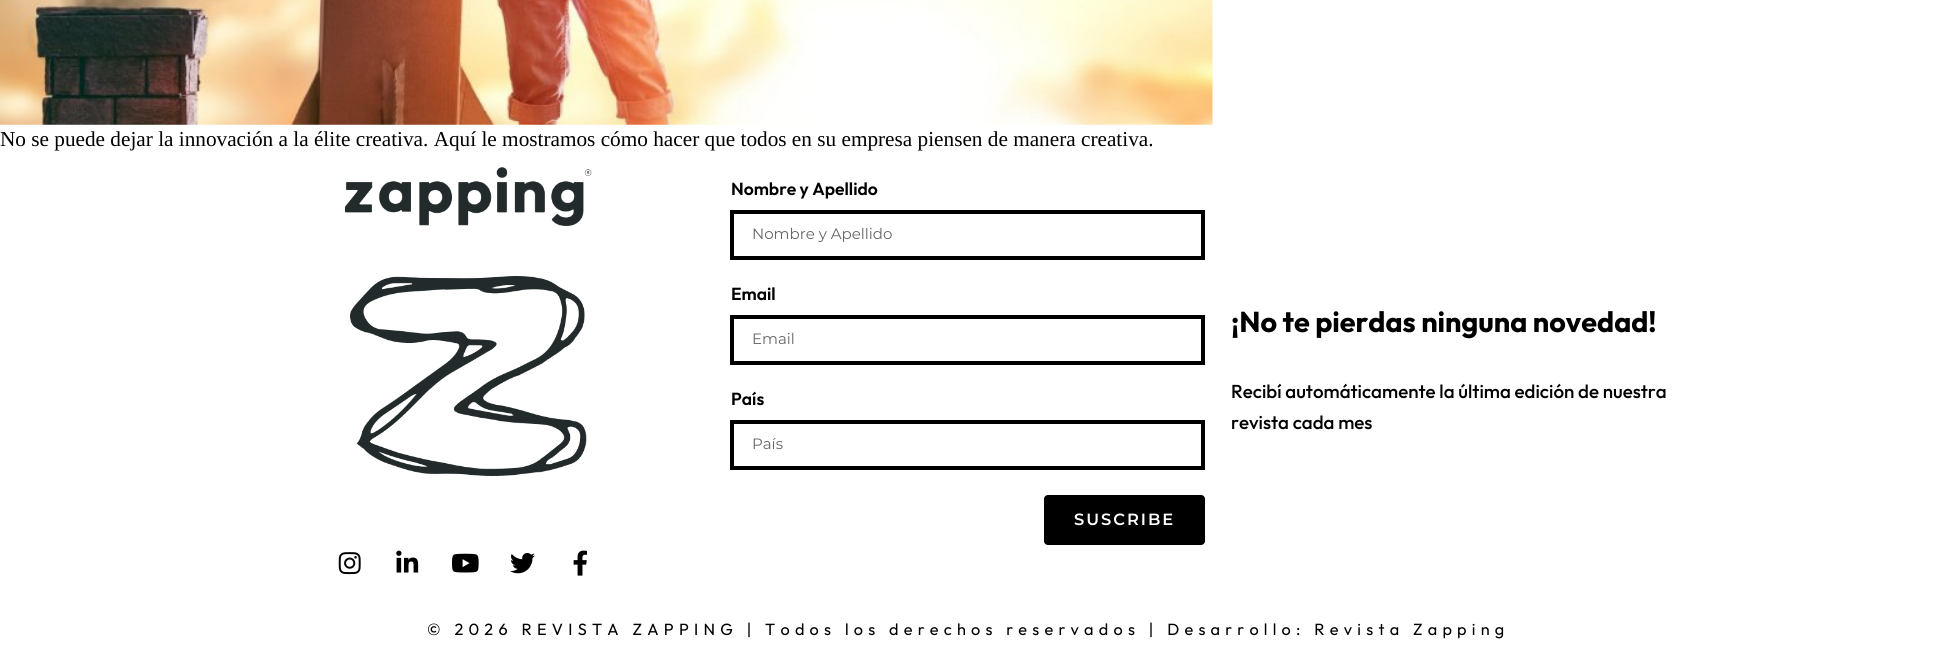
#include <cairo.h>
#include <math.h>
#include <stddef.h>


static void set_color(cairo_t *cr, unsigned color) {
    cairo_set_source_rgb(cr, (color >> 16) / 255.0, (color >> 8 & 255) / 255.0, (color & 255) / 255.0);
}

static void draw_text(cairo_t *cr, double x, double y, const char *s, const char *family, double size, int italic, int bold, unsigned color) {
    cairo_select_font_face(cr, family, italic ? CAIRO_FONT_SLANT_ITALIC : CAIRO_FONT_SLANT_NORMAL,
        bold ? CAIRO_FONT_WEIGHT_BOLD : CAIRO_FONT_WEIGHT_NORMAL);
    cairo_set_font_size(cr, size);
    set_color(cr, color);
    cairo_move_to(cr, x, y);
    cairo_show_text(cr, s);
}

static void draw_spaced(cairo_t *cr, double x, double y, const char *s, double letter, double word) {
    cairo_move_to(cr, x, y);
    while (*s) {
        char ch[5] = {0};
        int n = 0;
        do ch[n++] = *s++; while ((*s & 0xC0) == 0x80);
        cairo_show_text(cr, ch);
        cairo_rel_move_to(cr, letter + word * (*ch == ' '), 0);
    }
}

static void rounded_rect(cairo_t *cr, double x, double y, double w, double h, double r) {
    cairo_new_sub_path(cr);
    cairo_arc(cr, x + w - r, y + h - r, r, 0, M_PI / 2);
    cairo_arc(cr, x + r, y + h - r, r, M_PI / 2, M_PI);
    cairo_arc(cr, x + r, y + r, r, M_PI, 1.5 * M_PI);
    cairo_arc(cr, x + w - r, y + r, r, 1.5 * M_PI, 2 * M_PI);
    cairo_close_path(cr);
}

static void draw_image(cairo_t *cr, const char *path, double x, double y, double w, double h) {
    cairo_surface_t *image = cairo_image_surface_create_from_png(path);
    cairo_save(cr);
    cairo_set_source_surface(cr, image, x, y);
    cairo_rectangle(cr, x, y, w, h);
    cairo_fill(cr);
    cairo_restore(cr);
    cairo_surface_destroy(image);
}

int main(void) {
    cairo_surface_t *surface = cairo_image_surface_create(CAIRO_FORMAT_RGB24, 1936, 669);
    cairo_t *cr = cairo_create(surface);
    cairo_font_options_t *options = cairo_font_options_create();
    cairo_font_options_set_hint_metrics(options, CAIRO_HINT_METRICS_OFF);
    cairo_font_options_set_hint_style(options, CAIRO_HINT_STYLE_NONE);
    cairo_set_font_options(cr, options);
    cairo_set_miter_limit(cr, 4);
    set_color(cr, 0xFFFFFF);
    cairo_paint(cr);
    draw_image(cr, "assets/img1.png", 0, 0, 1213, 125);
    draw_text(cr, 0, 146, "No se puede dejar la innovación a la élite creativa. Aquí le mostramos cómo hacer que todos en su empresa piensen de manera creativa.", "Liberation Serif", 21.25, 0, 0, 0x000000);
    draw_image(cr, "assets/img2.png", 345, 167, 247, 59);
    draw_image(cr, "assets/img3.png", 350, 276, 237, 200);
    draw_image(cr, "assets/img4.png", 338, 552, 23, 23);
    draw_image(cr, "assets/img5.png", 396, 550, 23, 23);
    draw_image(cr, "assets/img6.png", 452, 553, 27, 20);
    draw_image(cr, "assets/img7.png", 510, 553, 25, 21);
    draw_image(cr, "assets/img8.png", 573, 550, 14, 26);
    draw_text(cr, 731, 195, "Nombre y Apellido", "Outfit SemiBold", 17.5, 0, 0, 0x000000);
    cairo_rectangle(cr, 732, 212, 471, 46);
    cairo_set_line_width(cr, 4);
    cairo_stroke(cr);
    draw_text(cr, 752, 239, "Nombre y Apellido", "Montserrat", 15, 0, 0, 0x666666);
    draw_text(cr, 731, 300, "Email", "Outfit SemiBold", 17.5, 0, 0, 0x000000);
    cairo_rectangle(cr, 732, 317, 471, 46);
    cairo_stroke(cr);
    draw_text(cr, 752, 344, "Email", "Montserrat", 15, 0, 0, 0x666666);
    draw_text(cr, 731, 405, "País", "Outfit SemiBold", 17.5, 0, 0, 0x000000);
    cairo_rectangle(cr, 732, 422, 471, 46);
    cairo_stroke(cr);
    draw_text(cr, 752, 449, "País", "Montserrat", 15, 0, 0, 0x666666);
    set_color(cr, 0x000000);
    rounded_rect(cr, 1044, 495, 161, 50, 4);
    cairo_fill(cr);
    cairo_select_font_face(cr, "Montserrat SemiBold", CAIRO_FONT_SLANT_NORMAL, CAIRO_FONT_WEIGHT_NORMAL);
    cairo_set_font_size(cr, 16.25);
    set_color(cr, 0xFFFFFF);
    draw_spaced(cr, 1074, 525, "SUSCRIBE", 2, 0);
    draw_text(cr, 1231, 332, "¡No te pierdas ninguna novedad!", "Outfit", 28.75, 0, 1, 0x000000);
    draw_text(cr, 1231, 398, "Recibí automáticamente la última edición de nuestra", "Outfit Medium", 18.75, 0, 0, 0x000000);
    draw_text(cr, 1231, 429, "revista cada mes", "Outfit Medium", 18.75, 0, 0, 0x000000);
    cairo_select_font_face(cr, "Outfit", CAIRO_FONT_SLANT_NORMAL, CAIRO_FONT_WEIGHT_NORMAL);
    cairo_set_font_size(cr, 16.25);
    draw_spaced(cr, 427, 635, "© 2026 REVISTA ZAPPING | Todos los derechos reservados | Desarrollo: Revista Zapping", 5.25, 0);
    cairo_surface_write_to_png(surface, "output.png");
    cairo_font_options_destroy(options);
    cairo_destroy(cr);
    cairo_surface_destroy(surface);
    return 0;
}
